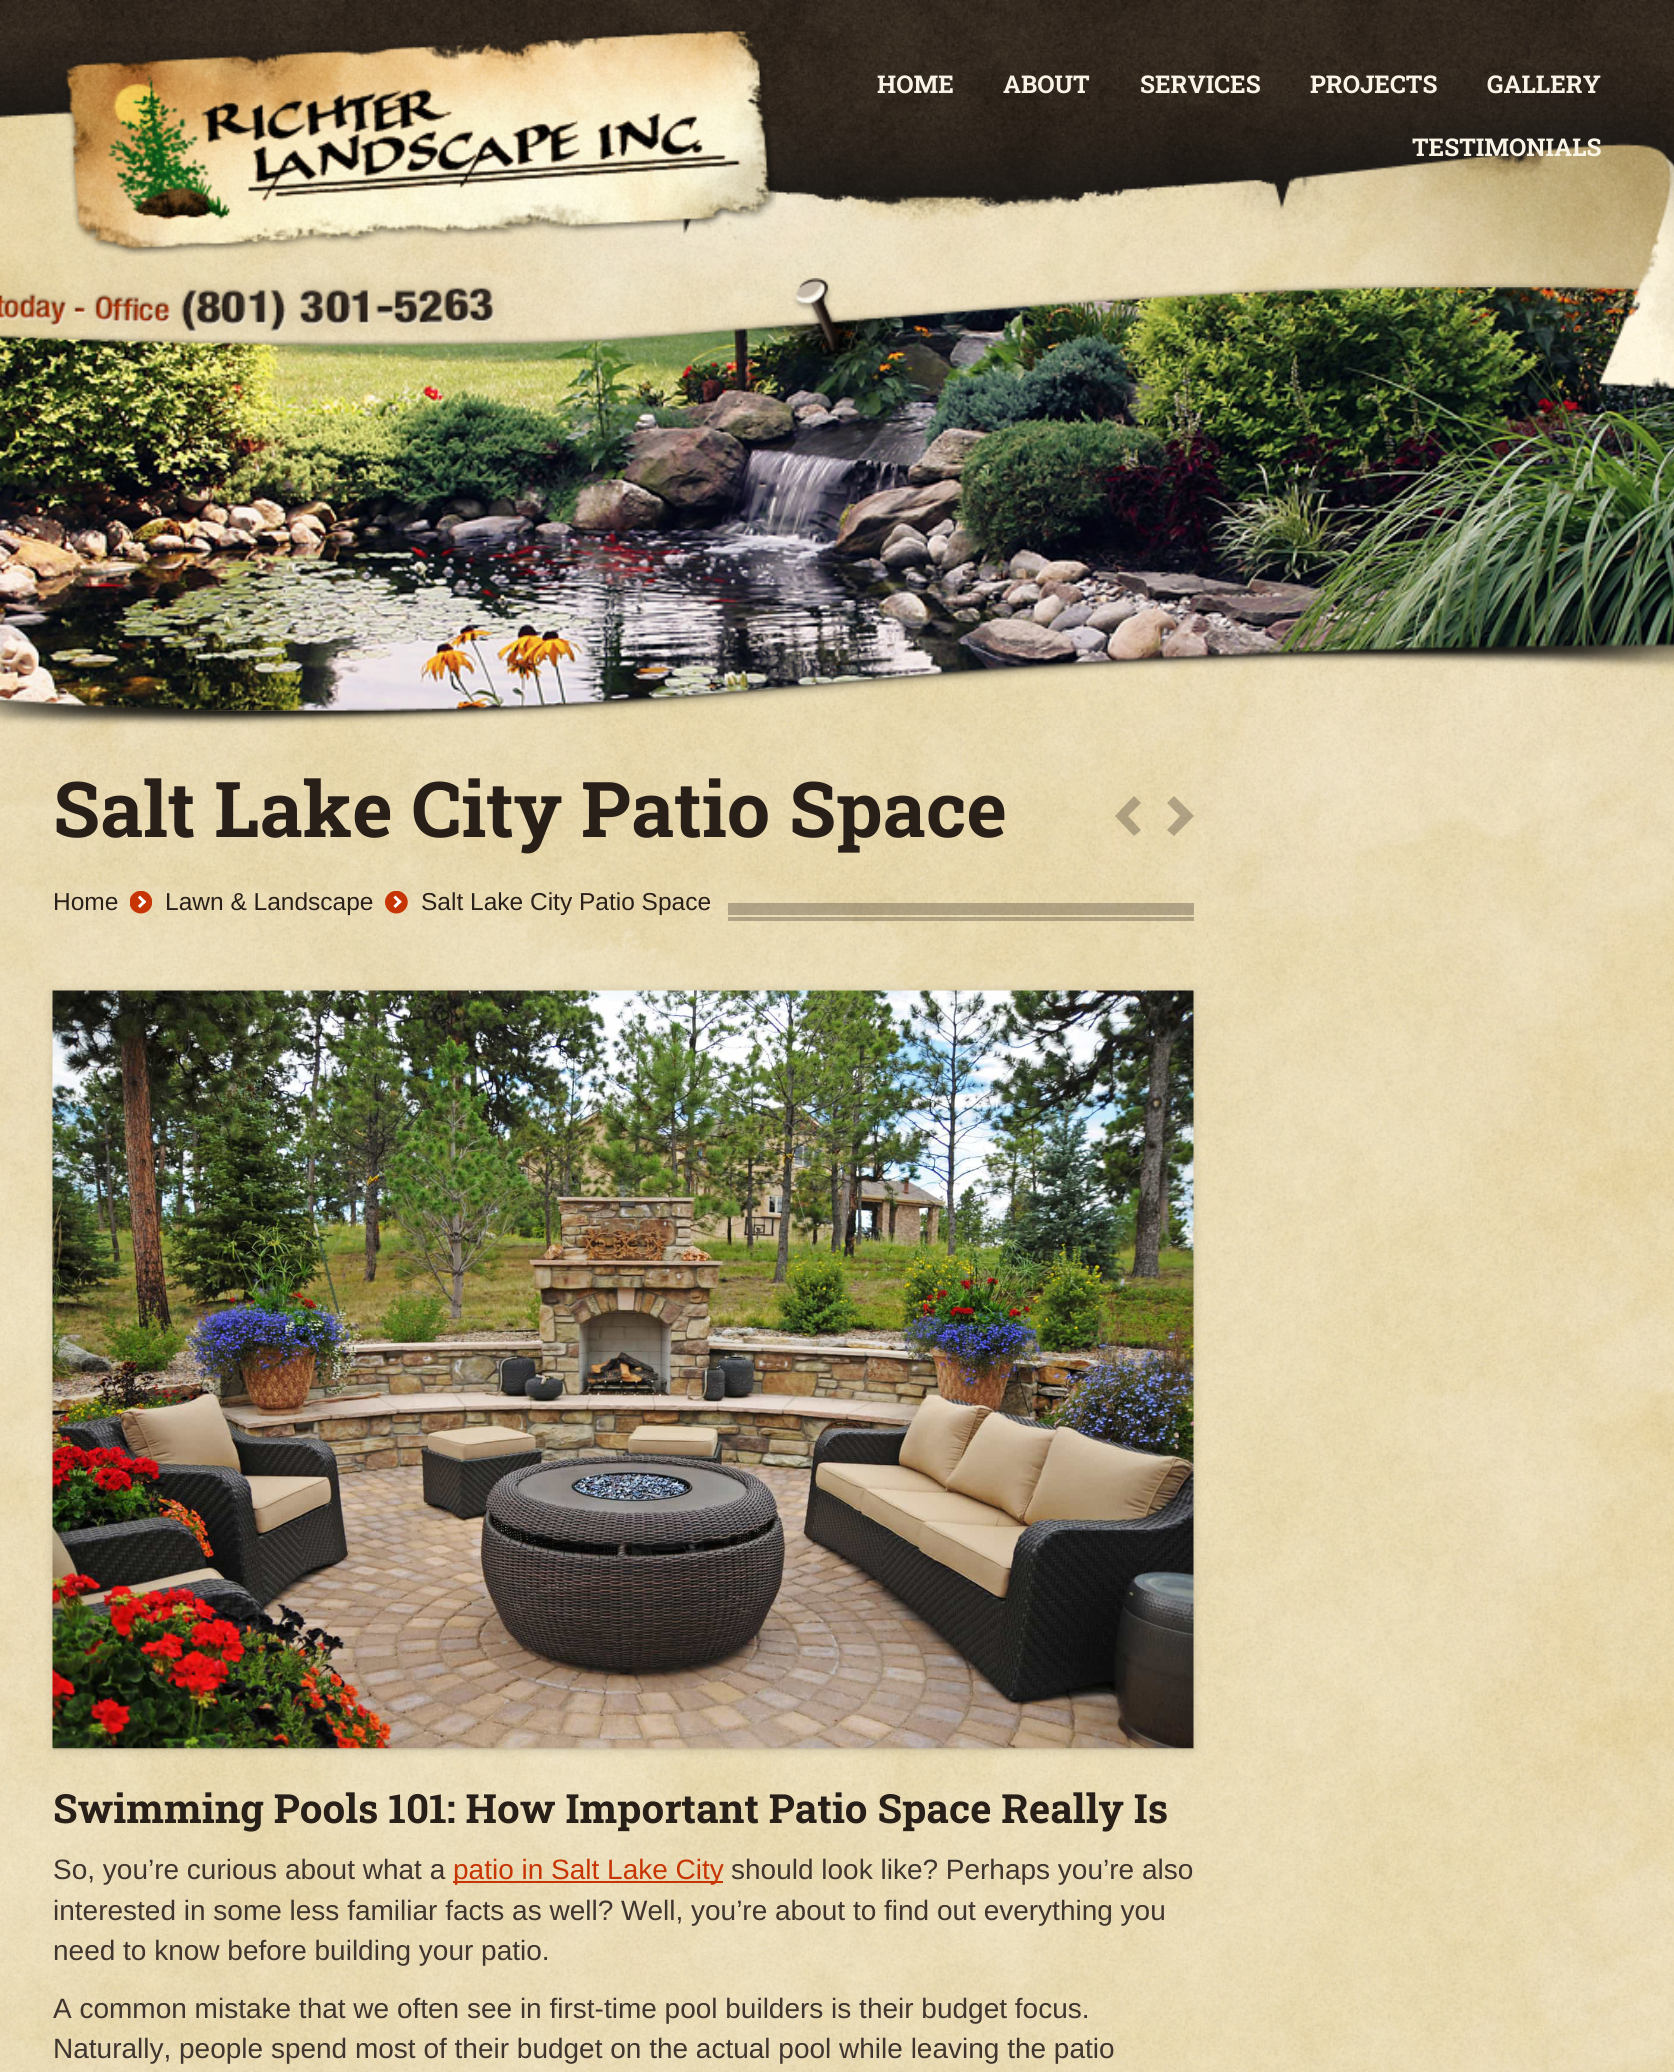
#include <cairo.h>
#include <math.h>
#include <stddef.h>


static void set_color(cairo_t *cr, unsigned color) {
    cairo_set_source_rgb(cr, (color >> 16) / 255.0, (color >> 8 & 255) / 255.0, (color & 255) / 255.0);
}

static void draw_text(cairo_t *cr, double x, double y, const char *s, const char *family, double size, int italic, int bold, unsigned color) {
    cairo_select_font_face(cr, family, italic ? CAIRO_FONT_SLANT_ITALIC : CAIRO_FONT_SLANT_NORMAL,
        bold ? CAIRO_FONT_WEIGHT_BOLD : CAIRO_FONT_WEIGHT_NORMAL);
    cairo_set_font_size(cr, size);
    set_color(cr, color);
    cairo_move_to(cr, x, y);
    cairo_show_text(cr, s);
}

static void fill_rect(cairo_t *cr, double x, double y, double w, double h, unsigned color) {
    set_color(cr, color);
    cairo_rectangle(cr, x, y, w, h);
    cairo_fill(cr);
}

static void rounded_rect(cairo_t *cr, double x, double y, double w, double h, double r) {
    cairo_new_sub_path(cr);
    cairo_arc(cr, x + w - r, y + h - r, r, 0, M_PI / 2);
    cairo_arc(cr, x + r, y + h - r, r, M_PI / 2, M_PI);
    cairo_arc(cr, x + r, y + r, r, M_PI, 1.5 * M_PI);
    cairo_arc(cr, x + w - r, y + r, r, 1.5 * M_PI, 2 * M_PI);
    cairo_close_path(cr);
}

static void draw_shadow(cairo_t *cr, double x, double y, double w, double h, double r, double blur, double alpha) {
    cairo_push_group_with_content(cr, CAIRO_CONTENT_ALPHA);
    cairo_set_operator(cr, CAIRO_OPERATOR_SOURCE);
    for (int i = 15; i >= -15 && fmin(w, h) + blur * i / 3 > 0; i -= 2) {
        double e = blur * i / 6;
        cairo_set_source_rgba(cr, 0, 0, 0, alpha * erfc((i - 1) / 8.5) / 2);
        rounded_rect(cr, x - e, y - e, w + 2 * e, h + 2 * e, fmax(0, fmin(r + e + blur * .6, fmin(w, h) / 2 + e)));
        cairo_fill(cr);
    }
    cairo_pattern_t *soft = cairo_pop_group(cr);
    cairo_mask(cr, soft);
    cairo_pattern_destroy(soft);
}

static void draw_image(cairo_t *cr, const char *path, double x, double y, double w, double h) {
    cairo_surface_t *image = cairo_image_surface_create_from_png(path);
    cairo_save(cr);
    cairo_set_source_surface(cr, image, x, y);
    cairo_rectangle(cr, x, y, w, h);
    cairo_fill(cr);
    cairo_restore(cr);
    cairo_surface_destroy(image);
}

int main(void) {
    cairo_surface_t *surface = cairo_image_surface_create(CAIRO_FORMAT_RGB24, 1674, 2072);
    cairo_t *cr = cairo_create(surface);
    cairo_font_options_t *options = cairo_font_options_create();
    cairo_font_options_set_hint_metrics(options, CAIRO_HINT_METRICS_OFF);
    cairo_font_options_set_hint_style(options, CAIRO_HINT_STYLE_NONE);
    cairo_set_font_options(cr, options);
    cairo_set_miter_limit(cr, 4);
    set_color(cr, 0xFFFFFF);
    cairo_paint(cr);
    draw_image(cr, "assets/img1.png", 0, 1155, 1674, 917);
    draw_image(cr, "assets/img2.png", 0, 0, 1674, 235);
    draw_image(cr, "assets/img3.png", 0, 41, 1674, 1114);
    draw_image(cr, "assets/img4.png", 66, 29, 710, 227);
    draw_text(cr, 877, 93, "HOME", "Roboto Slab", 24.5, 0, 1, 0xFAF4E7);
    draw_text(cr, 1003, 93, "ABOUT", "Roboto Slab", 24.5, 0, 1, 0xFAF4E7);
    draw_text(cr, 1140, 93, "SERVICES", "Roboto Slab", 24.5, 0, 1, 0xFAF4E7);
    draw_text(cr, 1310, 93, "PROJECTS", "Roboto Slab", 24.5, 0, 1, 0xFAF4E7);
    draw_text(cr, 1487, 93, "GALLERY", "Roboto Slab", 24.5, 0, 1, 0xFAF4E7);
    draw_text(cr, 1412, 156, "TESTIMONIALS", "Roboto Slab", 24.5, 0, 1, 0xFAF4E7);
    draw_image(cr, "assets/img7.png", 0, 287, 1674, 424);
    draw_image(cr, "assets/img8.png", 0, 278, 1674, 450);
    draw_image(cr, "assets/img5.png", 0, 277, 504, 60);
    draw_image(cr, "assets/img6.png", 1598, 157, 76, 250);
    draw_text(cr, 53, 837, "Salt Lake City Patio Space", "Roboto Slab", 77, 0, 1, 0x291F19);
    cairo_set_source_rgba(cr, 0.161, 0.122, 0.098, 0.3);
    cairo_new_path(cr);
    cairo_move_to(cr, 1128, 816);
    cairo_line_to(cr, 1141, 803);
    cairo_line_to(cr, 1134, 796);
    cairo_line_to(cr, 1115, 816);
    cairo_line_to(cr, 1134, 836);
    cairo_line_to(cr, 1141, 830);
    cairo_close_path(cr);
    cairo_fill(cr);
    cairo_new_path(cr);
    cairo_move_to(cr, 1167, 830);
    cairo_line_to(cr, 1174, 836);
    cairo_line_to(cr, 1194, 816);
    cairo_line_to(cr, 1174, 796);
    cairo_line_to(cr, 1167, 803);
    cairo_line_to(cr, 1180, 816);
    cairo_close_path(cr);
    cairo_fill(cr);
    draw_text(cr, 53, 910, "Home", "Liberation Sans", 24.5, 0, 0, 0x291F19);
    draw_image(cr, "assets/img9.png", 130, 891, 22, 23);
    draw_text(cr, 165, 910, "Lawn & Landscape", "Liberation Sans", 24.5, 0, 0, 0x291F19);
    draw_image(cr, "assets/img10.png", 385, 891, 23, 23);
    draw_text(cr, 421, 910, "Salt Lake City Patio Space", "Liberation Sans", 24.5, 0, 0, 0x291F19);
    cairo_set_source_rgba(cr, 0.161, 0.122, 0.098, 0.3);
    cairo_rectangle(cr, 728, 903, 466, 12);
    cairo_fill(cr);
    cairo_rectangle(cr, 728, 917, 466, 4);
    cairo_fill(cr);
    set_color(cr, 0x000000);
    draw_shadow(cr, 53, 992, 1141, 758, 0, 5, 0.15);
    cairo_set_source_rgba(cr, 0, 0, 0, 0.05);
    cairo_new_path(cr);
    cairo_move_to(cr, 53, 1748);
    cairo_line_to(cr, 53, 1750);
    cairo_line_to(cr, 1194, 1750);
    cairo_line_to(cr, 1194, 992);
    cairo_line_to(cr, 1194, 1748);
    cairo_close_path(cr);
    cairo_fill(cr);
    draw_image(cr, "assets/img11.png", 52, 990, 1142, 759);
    draw_text(cr, 53, 1823, "Swimming Pools 101: How Important Patio Space Really Is", "Roboto Slab", 40.25, 0, 1, 0x291F19);
    draw_text(cr, 53, 1879, "So, you’re curious about what a", "Liberation Sans", 28, 0, 0, 0x3F352E);
    fill_rect(cr, 453, 1881, 270, 2, 0xC73504);
    draw_text(cr, 453, 1879, "patio in Salt Lake City", "Liberation Sans", 28, 0, 0, 0xC73504);
    draw_text(cr, 731, 1879, "should look like? Perhaps you’re also", "Liberation Sans", 28, 0, 0, 0x3F352E);
    draw_text(cr, 53, 1920, "interested in some less familiar facts as well? Well, you’re about to find out everything you", "Liberation Sans", 28, 0, 0, 0x3F352E);
    draw_text(cr, 53, 1960, "need to know before building your patio.", "Liberation Sans", 28, 0, 0, 0x3F352E);
    draw_text(cr, 53, 2018, "A common mistake that we often see in first-time pool builders is their budget focus.", "Liberation Sans", 28, 0, 0, 0x3F352E);
    draw_text(cr, 53, 2058, "Naturally, people spend most of their budget on the actual pool while leaving the patio", "Liberation Sans", 28, 0, 0, 0x3F352E);
    cairo_surface_write_to_png(surface, "output.png");
    cairo_font_options_destroy(options);
    cairo_destroy(cr);
    cairo_surface_destroy(surface);
    return 0;
}
